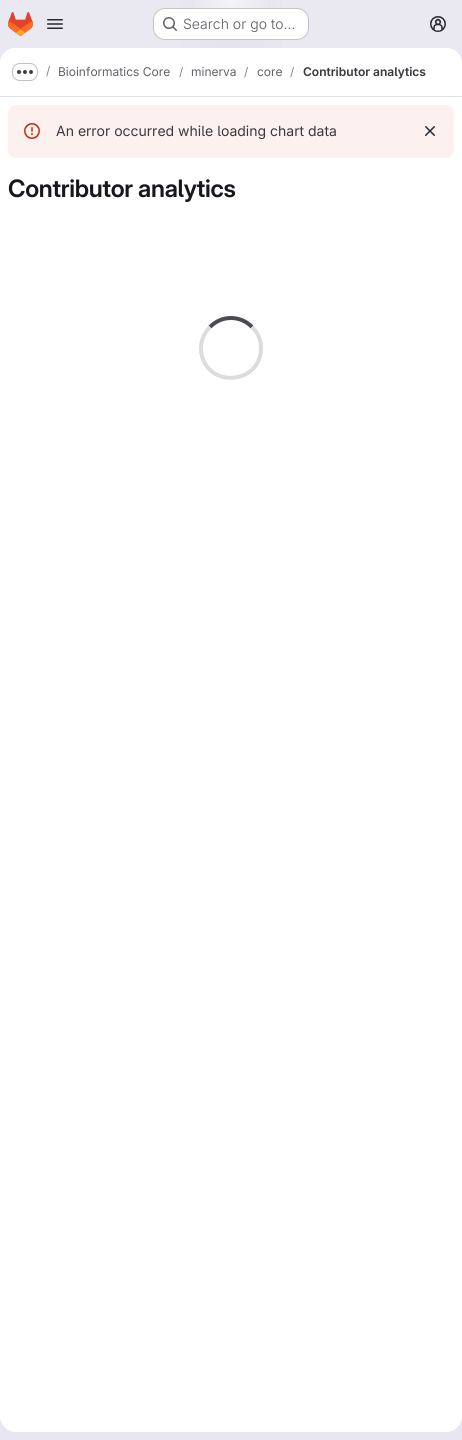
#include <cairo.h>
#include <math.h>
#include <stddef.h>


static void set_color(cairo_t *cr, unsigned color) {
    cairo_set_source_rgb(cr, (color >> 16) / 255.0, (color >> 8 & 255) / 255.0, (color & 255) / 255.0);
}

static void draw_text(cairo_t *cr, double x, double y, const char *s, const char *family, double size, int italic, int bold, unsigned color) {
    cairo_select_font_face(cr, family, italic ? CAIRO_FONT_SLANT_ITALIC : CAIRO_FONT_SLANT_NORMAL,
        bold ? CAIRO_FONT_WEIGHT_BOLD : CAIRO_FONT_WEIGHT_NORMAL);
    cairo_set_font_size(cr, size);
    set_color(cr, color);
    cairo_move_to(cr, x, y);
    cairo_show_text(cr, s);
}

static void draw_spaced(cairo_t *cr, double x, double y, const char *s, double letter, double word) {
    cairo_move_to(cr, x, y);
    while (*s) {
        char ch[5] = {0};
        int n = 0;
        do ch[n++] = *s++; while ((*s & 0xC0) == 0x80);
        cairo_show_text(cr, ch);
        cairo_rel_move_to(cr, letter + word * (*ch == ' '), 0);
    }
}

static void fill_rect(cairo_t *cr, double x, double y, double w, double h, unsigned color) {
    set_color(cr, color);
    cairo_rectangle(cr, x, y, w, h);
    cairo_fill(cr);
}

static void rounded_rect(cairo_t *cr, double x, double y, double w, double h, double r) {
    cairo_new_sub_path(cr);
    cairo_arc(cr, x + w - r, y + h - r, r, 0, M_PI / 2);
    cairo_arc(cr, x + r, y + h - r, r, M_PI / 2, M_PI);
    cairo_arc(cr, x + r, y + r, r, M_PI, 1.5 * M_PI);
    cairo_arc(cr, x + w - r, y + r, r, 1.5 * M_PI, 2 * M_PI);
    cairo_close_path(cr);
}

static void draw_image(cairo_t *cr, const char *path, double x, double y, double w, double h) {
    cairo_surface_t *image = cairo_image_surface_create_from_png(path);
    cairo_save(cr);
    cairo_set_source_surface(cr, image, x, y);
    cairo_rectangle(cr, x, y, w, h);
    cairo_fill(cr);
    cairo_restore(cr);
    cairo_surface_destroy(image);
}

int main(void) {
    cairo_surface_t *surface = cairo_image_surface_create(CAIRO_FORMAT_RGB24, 462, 1440);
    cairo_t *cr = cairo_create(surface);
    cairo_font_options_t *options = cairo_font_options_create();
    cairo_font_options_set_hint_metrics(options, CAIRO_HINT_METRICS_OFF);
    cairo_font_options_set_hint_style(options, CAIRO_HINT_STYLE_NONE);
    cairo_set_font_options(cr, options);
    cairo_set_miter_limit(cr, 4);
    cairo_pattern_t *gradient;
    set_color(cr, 0xFFFFFF);
    cairo_paint(cr);
    gradient = cairo_pattern_create_linear(361, 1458, 101, -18);
    cairo_pattern_add_color_stop_rgba(gradient, 0, 0.91, 0.902, 0.941, 1);
    cairo_pattern_add_color_stop_rgba(gradient, 0.7, 0.918, 0.914, 0.949, 1);
    cairo_set_source(cr, gradient);
    cairo_pattern_destroy(gradient);
    cairo_rectangle(cr, 0, 0, 462, 1440);
    cairo_fill(cr);
    gradient = cairo_pattern_create_radial(0, 0, 0, 0, 0, 1);
    cairo_pattern_set_matrix(gradient, &(cairo_matrix_t){1.0 / 231, 0, 0, 1.0 / 1440, -1.0 * 231 / 231, -1.0 * 0 / 1440});
    cairo_pattern_add_color_stop_rgba(gradient, 0, 0.894, 0.886, 0.929, 1);
    cairo_pattern_add_color_stop_rgba(gradient, 0.3, 0.894, 0.886, 0.929, 0);
    cairo_set_source(cr, gradient);
    cairo_pattern_destroy(gradient);
    cairo_rectangle(cr, 181, 0, 100, 48);
    cairo_fill(cr);
    gradient = cairo_pattern_create_radial(0, 0, 0, 0, 0, 1);
    cairo_pattern_set_matrix(gradient, &(cairo_matrix_t){1.0 / 231, 0, 0, 1.0 / 1440, -1.0 * 231 / 231, -1.0 * 0 / 1440});
    cairo_pattern_add_color_stop_rgba(gradient, 0, 0.894, 0.886, 0.925, 1);
    cairo_pattern_add_color_stop_rgba(gradient, 0.22, 0.894, 0.886, 0.925, 0);
    cairo_set_source(cr, gradient);
    cairo_pattern_destroy(gradient);
    cairo_rectangle(cr, 207, 11, 48, 22);
    cairo_fill(cr);
    gradient = cairo_pattern_create_radial(231, 0, 0, 231, 0, 1458);
    cairo_pattern_add_color_stop_rgba(gradient, 0, 1, 1, 1, 0.6);
    cairo_pattern_add_color_stop_rgba(gradient, 0.03, 1, 1, 1, 0);
    cairo_set_source(cr, gradient);
    cairo_pattern_destroy(gradient);
    cairo_rectangle(cr, 194, 0, 74, 37);
    cairo_fill(cr);
    draw_image(cr, "assets/img1.png", 8, 12, 25, 24);
    draw_image(cr, "assets/img2.png", 47, 19, 16, 10);
    set_color(cr, 0xFFFFFF);
    rounded_rect(cr, 153, 8, 156, 32, 12);
    cairo_fill(cr);
    rounded_rect(cr, 153.5, 8.5, 155, 31, 11.5);
    cairo_set_source_rgba(cr, 0.02, 0.02, 0.024, 0.24);
    cairo_set_line_width(cr, 1);
    cairo_stroke(cr);
    draw_image(cr, "assets/img3.png", 163, 17, 14, 14);
    draw_text(cr, 183, 29, "Search or go to…", "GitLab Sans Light", 14, 0, 0, 0x626168);
    draw_image(cr, "assets/img4.png", 430, 16, 16, 16);
    set_color(cr, 0xFFFFFF);
    rounded_rect(cr, 0, 48, 462, 1384, 16);
    cairo_fill(cr);
    cairo_new_path(cr);
    cairo_move_to(cr, 16, 48);
    cairo_line_to(cr, 446, 48);
    cairo_curve_to(cr, 455, 48, 462, 55, 462, 64);
    cairo_line_to(cr, 462, 97);
    cairo_line_to(cr, 0, 97);
    cairo_line_to(cr, 0, 64);
    cairo_curve_to(cr, 0, 55, 7, 48, 16, 48);
    cairo_close_path(cr);
    cairo_fill(cr);
    fill_rect(cr, 0, 96, 462, 1, 0xE1DFEC);
    rounded_rect(cr, 12.5, 63.5, 25, 17, 7.5);
    set_color(cr, 0xBFBFC3);
    cairo_stroke(cr);
    draw_image(cr, "assets/img5.png", 17, 70, 16, 4);
    draw_text(cr, 46, 75, "/", "GitLab Sans", 12, 0, 0, 0x89888D);
    draw_text(cr, 58, 76, "Bioinformatics Core", "GitLab Sans", 12, 0, 0, 0x626168);
    draw_text(cr, 179, 76, "/", "GitLab Sans", 12, 0, 0, 0x89888D);
    draw_text(cr, 191, 76, "minerva", "GitLab Sans", 12, 0, 0, 0x626168);
    draw_text(cr, 244, 76, "/", "GitLab Sans", 12, 0, 0, 0x89888D);
    draw_text(cr, 257, 76, "core", "GitLab Sans", 12, 0, 0, 0x626168);
    draw_text(cr, 290, 76, "/", "GitLab Sans", 12, 0, 0, 0x89888D);
    draw_text(cr, 303, 76, "Contributor analytics", "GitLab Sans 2 SemiBold", 12, 0, 0, 0x3A383F);
    set_color(cr, 0xFCF1EF);
    rounded_rect(cr, 8, 105, 446, 53, 8);
    cairo_fill(cr);
    draw_image(cr, "assets/img6.png", 24, 123, 16, 16);
    draw_text(cr, 56, 136, "An error occurred while loading chart data", "GitLab Sans", 14, 0, 0, 0x3A383F);
    draw_image(cr, "assets/img7.png", 425, 126, 10, 10);
    cairo_select_font_face(cr, "GitLab Sans SemiBold", CAIRO_FONT_SLANT_NORMAL, CAIRO_FONT_WEIGHT_NORMAL);
    cairo_set_font_size(cr, 24);
    set_color(cr, 0x18171D);
    draw_spaced(cr, 8, 197, "Contributor analytics", -0.25, 0);
    cairo_new_path(cr);
    cairo_move_to(cr, 210, 327);
    cairo_curve_to(cr, 221.5, 315, 240.5, 315, 252, 327);
    set_color(cr, 0x4C4B51);
    cairo_set_line_width(cr, 4);
    cairo_stroke(cr);
    cairo_new_path(cr);
    cairo_move_to(cr, 252, 327);
    cairo_curve_to(cr, 258, 332.5, 261, 340, 261, 348);
    cairo_curve_to(cr, 261, 384, 208.5, 389, 201.5, 354);
    cairo_curve_to(cr, 199.5, 344, 203, 334, 210, 327);
    set_color(cr, 0xDCDCDE);
    cairo_stroke(cr);
    cairo_surface_write_to_png(surface, "output.png");
    cairo_font_options_destroy(options);
    cairo_destroy(cr);
    cairo_surface_destroy(surface);
    return 0;
}
